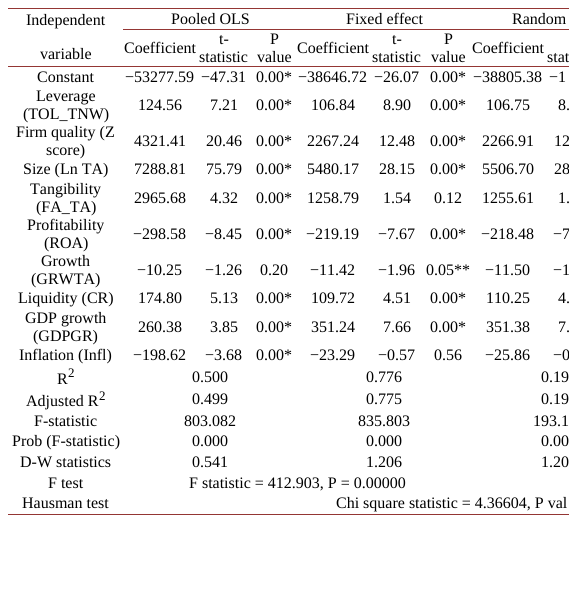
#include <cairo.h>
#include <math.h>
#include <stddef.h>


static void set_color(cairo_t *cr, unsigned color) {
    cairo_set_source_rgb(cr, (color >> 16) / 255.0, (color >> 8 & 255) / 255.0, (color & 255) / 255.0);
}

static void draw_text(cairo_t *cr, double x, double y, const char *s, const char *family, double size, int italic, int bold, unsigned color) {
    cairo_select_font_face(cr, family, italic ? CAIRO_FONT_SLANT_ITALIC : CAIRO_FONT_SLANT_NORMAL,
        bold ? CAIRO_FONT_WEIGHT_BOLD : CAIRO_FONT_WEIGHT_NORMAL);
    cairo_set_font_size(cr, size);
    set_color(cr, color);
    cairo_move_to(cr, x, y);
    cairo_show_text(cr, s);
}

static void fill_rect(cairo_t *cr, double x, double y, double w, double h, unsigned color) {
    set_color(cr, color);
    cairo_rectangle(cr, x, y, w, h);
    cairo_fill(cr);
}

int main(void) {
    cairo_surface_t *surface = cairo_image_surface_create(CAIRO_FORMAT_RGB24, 569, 605);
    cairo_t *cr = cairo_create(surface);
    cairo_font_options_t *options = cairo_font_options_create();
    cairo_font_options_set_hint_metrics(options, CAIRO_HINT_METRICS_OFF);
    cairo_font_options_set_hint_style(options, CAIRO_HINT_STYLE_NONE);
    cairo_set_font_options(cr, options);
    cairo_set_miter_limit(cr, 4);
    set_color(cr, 0xFFFFFF);
    cairo_paint(cr);
    draw_text(cr, 26, 25, "Independent", "Liberation Serif", 16, 0, 0, 0x000000);
    draw_text(cr, 40, 59, "variable", "Liberation Serif", 16, 0, 0, 0x000000);
    draw_text(cr, 171, 24, "Pooled OLS", "Liberation Serif", 16, 0, 0, 0x000000);
    draw_text(cr, 346, 24, "Fixed effect", "Liberation Serif", 16, 0, 0, 0x000000);
    fill_rect(cr, 8, 8, 561, 1, 0x943634);
    fill_rect(cr, 123, 29, 446, 1, 0x943634);
    draw_text(cr, 512, 24, "Random", "Liberation Serif", 16, 0, 0, 0x000000);
    draw_text(cr, 124, 53, "Coefficient", "Liberation Serif", 16, 0, 0, 0x000000);
    draw_text(cr, 219, 44, "t-", "Liberation Serif", 16, 0, 0, 0x000000);
    draw_text(cr, 199, 62, "statistic", "Liberation Serif", 16, 0, 0, 0x000000);
    draw_text(cr, 270, 44, "P", "Liberation Serif", 16, 0, 0, 0x000000);
    draw_text(cr, 257, 62, "value", "Liberation Serif", 16, 0, 0, 0x000000);
    draw_text(cr, 297, 53, "Coefficient", "Liberation Serif", 16, 0, 0, 0x000000);
    draw_text(cr, 392, 44, "t-", "Liberation Serif", 16, 0, 0, 0x000000);
    draw_text(cr, 372, 62, "statistic", "Liberation Serif", 16, 0, 0, 0x000000);
    draw_text(cr, 444, 44, "P", "Liberation Serif", 16, 0, 0, 0x000000);
    draw_text(cr, 431, 62, "value", "Liberation Serif", 16, 0, 0, 0x000000);
    draw_text(cr, 472, 53, "Coefficient", "Liberation Serif", 16, 0, 0, 0x000000);
    fill_rect(cr, 8, 66, 561, 1, 0x943634);
    draw_text(cr, 547, 62, "stat", "Liberation Serif", 16, 0, 0, 0x000000);
    draw_text(cr, 37, 82, "Constant", "Liberation Serif", 16, 0, 0, 0x000000);
    draw_text(cr, 125, 82, "−53277.59", "Liberation Serif", 16, 0, 0, 0x000000);
    draw_text(cr, 201, 82, "−47.31", "Liberation Serif", 16, 0, 0, 0x000000);
    draw_text(cr, 256, 82, "0.00*", "Liberation Serif", 16, 0, 0, 0x000000);
    draw_text(cr, 298, 82, "−38646.72", "Liberation Serif", 16, 0, 0, 0x000000);
    draw_text(cr, 374, 82, "−26.07", "Liberation Serif", 16, 0, 0, 0x000000);
    draw_text(cr, 430, 82, "0.00*", "Liberation Serif", 16, 0, 0, 0x000000);
    draw_text(cr, 473, 82, "−38805.38", "Liberation Serif", 16, 0, 0, 0x000000);
    draw_text(cr, 549, 82, "−1", "Liberation Serif", 16, 0, 0, 0x000000);
    draw_text(cr, 36, 101, "Leverage", "Liberation Serif", 16, 0, 0, 0x000000);
    draw_text(cr, 23, 119, "(TOL_TNW)", "Liberation Serif", 16, 0, 0, 0x000000);
    draw_text(cr, 138, 110, "124.56", "Liberation Serif", 16, 0, 0, 0x000000);
    draw_text(cr, 210, 110, "7.21", "Liberation Serif", 16, 0, 0, 0x000000);
    draw_text(cr, 256, 110, "0.00*", "Liberation Serif", 16, 0, 0, 0x000000);
    draw_text(cr, 311, 110, "106.84", "Liberation Serif", 16, 0, 0, 0x000000);
    draw_text(cr, 383, 110, "8.90", "Liberation Serif", 16, 0, 0, 0x000000);
    draw_text(cr, 430, 110, "0.00*", "Liberation Serif", 16, 0, 0, 0x000000);
    draw_text(cr, 486, 110, "106.75", "Liberation Serif", 16, 0, 0, 0x000000);
    draw_text(cr, 558, 110, "8.", "Liberation Serif", 16, 0, 0, 0x000000);
    draw_text(cr, 16, 137, "Firm quality (Z", "Liberation Serif", 16, 0, 0, 0x000000);
    draw_text(cr, 46, 155, "score)", "Liberation Serif", 16, 0, 0, 0x000000);
    draw_text(cr, 134, 146, "4321.41", "Liberation Serif", 16, 0, 0, 0x000000);
    draw_text(cr, 206, 146, "20.46", "Liberation Serif", 16, 0, 0, 0x000000);
    draw_text(cr, 256, 146, "0.00*", "Liberation Serif", 16, 0, 0, 0x000000);
    draw_text(cr, 307, 146, "2267.24", "Liberation Serif", 16, 0, 0, 0x000000);
    draw_text(cr, 379, 146, "12.48", "Liberation Serif", 16, 0, 0, 0x000000);
    draw_text(cr, 430, 146, "0.00*", "Liberation Serif", 16, 0, 0, 0x000000);
    draw_text(cr, 482, 146, "2266.91", "Liberation Serif", 16, 0, 0, 0x000000);
    draw_text(cr, 554, 146, "12", "Liberation Serif", 16, 0, 0, 0x000000);
    draw_text(cr, 23, 174, "Size (Ln TA)", "Liberation Serif", 16, 0, 0, 0x000000);
    draw_text(cr, 134, 174, "7288.81", "Liberation Serif", 16, 0, 0, 0x000000);
    draw_text(cr, 206, 174, "75.79", "Liberation Serif", 16, 0, 0, 0x000000);
    draw_text(cr, 256, 174, "0.00*", "Liberation Serif", 16, 0, 0, 0x000000);
    draw_text(cr, 307, 174, "5480.17", "Liberation Serif", 16, 0, 0, 0x000000);
    draw_text(cr, 379, 174, "28.15", "Liberation Serif", 16, 0, 0, 0x000000);
    draw_text(cr, 430, 174, "0.00*", "Liberation Serif", 16, 0, 0, 0x000000);
    draw_text(cr, 482, 174, "5506.70", "Liberation Serif", 16, 0, 0, 0x000000);
    draw_text(cr, 554, 174, "28", "Liberation Serif", 16, 0, 0, 0x000000);
    draw_text(cr, 30, 194, "Tangibility", "Liberation Serif", 16, 0, 0, 0x000000);
    draw_text(cr, 36, 212, "(FA_TA)", "Liberation Serif", 16, 0, 0, 0x000000);
    draw_text(cr, 134, 203, "2965.68", "Liberation Serif", 16, 0, 0, 0x000000);
    draw_text(cr, 210, 203, "4.32", "Liberation Serif", 16, 0, 0, 0x000000);
    draw_text(cr, 256, 203, "0.00*", "Liberation Serif", 16, 0, 0, 0x000000);
    draw_text(cr, 307, 203, "1258.79", "Liberation Serif", 16, 0, 0, 0x000000);
    draw_text(cr, 383, 203, "1.54", "Liberation Serif", 16, 0, 0, 0x000000);
    draw_text(cr, 434, 203, "0.12", "Liberation Serif", 16, 0, 0, 0x000000);
    draw_text(cr, 482, 203, "1255.61", "Liberation Serif", 16, 0, 0, 0x000000);
    draw_text(cr, 558, 203, "1.", "Liberation Serif", 16, 0, 0, 0x000000);
    draw_text(cr, 27, 230, "Profitability", "Liberation Serif", 16, 0, 0, 0x000000);
    draw_text(cr, 44, 248, "(ROA)", "Liberation Serif", 16, 0, 0, 0x000000);
    draw_text(cr, 133, 239, "−298.58", "Liberation Serif", 16, 0, 0, 0x000000);
    draw_text(cr, 205, 239, "−8.45", "Liberation Serif", 16, 0, 0, 0x000000);
    draw_text(cr, 256, 239, "0.00*", "Liberation Serif", 16, 0, 0, 0x000000);
    draw_text(cr, 306, 239, "−219.19", "Liberation Serif", 16, 0, 0, 0x000000);
    draw_text(cr, 378, 239, "−7.67", "Liberation Serif", 16, 0, 0, 0x000000);
    draw_text(cr, 430, 239, "0.00*", "Liberation Serif", 16, 0, 0, 0x000000);
    draw_text(cr, 481, 239, "−218.48", "Liberation Serif", 16, 0, 0, 0x000000);
    draw_text(cr, 553, 239, "−7", "Liberation Serif", 16, 0, 0, 0x000000);
    draw_text(cr, 41, 266, "Growth", "Liberation Serif", 16, 0, 0, 0x000000);
    draw_text(cr, 31, 284, "(GRWTA)", "Liberation Serif", 16, 0, 0, 0x000000);
    draw_text(cr, 137, 275, "−10.25", "Liberation Serif", 16, 0, 0, 0x000000);
    draw_text(cr, 205, 275, "−1.26", "Liberation Serif", 16, 0, 0, 0x000000);
    draw_text(cr, 260, 275, "0.20", "Liberation Serif", 16, 0, 0, 0x000000);
    draw_text(cr, 310, 275, "−11.42", "Liberation Serif", 16, 0, 0, 0x000000);
    draw_text(cr, 378, 275, "−1.96", "Liberation Serif", 16, 0, 0, 0x000000);
    draw_text(cr, 426, 275, "0.05**", "Liberation Serif", 16, 0, 0, 0x000000);
    draw_text(cr, 485, 275, "−11.50", "Liberation Serif", 16, 0, 0, 0x000000);
    draw_text(cr, 553, 275, "−1", "Liberation Serif", 16, 0, 0, 0x000000);
    draw_text(cr, 18, 303, "Liquidity (CR)", "Liberation Serif", 16, 0, 0, 0x000000);
    draw_text(cr, 138, 303, "174.80", "Liberation Serif", 16, 0, 0, 0x000000);
    draw_text(cr, 210, 303, "5.13", "Liberation Serif", 16, 0, 0, 0x000000);
    draw_text(cr, 256, 303, "0.00*", "Liberation Serif", 16, 0, 0, 0x000000);
    draw_text(cr, 311, 303, "109.72", "Liberation Serif", 16, 0, 0, 0x000000);
    draw_text(cr, 383, 303, "4.51", "Liberation Serif", 16, 0, 0, 0x000000);
    draw_text(cr, 430, 303, "0.00*", "Liberation Serif", 16, 0, 0, 0x000000);
    draw_text(cr, 486, 303, "110.25", "Liberation Serif", 16, 0, 0, 0x000000);
    draw_text(cr, 558, 303, "4.", "Liberation Serif", 16, 0, 0, 0x000000);
    draw_text(cr, 25, 323, "GDP growth", "Liberation Serif", 16, 0, 0, 0x000000);
    draw_text(cr, 33, 341, "(GDPGR)", "Liberation Serif", 16, 0, 0, 0x000000);
    draw_text(cr, 138, 332, "260.38", "Liberation Serif", 16, 0, 0, 0x000000);
    draw_text(cr, 210, 332, "3.85", "Liberation Serif", 16, 0, 0, 0x000000);
    draw_text(cr, 256, 332, "0.00*", "Liberation Serif", 16, 0, 0, 0x000000);
    draw_text(cr, 311, 332, "351.24", "Liberation Serif", 16, 0, 0, 0x000000);
    draw_text(cr, 383, 332, "7.66", "Liberation Serif", 16, 0, 0, 0x000000);
    draw_text(cr, 430, 332, "0.00*", "Liberation Serif", 16, 0, 0, 0x000000);
    draw_text(cr, 486, 332, "351.38", "Liberation Serif", 16, 0, 0, 0x000000);
    draw_text(cr, 558, 332, "7.", "Liberation Serif", 16, 0, 0, 0x000000);
    draw_text(cr, 19, 360, "Inflation (Infl)", "Liberation Serif", 16, 0, 0, 0x000000);
    draw_text(cr, 133, 360, "−198.62", "Liberation Serif", 16, 0, 0, 0x000000);
    draw_text(cr, 205, 360, "−3.68", "Liberation Serif", 16, 0, 0, 0x000000);
    draw_text(cr, 256, 360, "0.00*", "Liberation Serif", 16, 0, 0, 0x000000);
    draw_text(cr, 310, 360, "−23.29", "Liberation Serif", 16, 0, 0, 0x000000);
    draw_text(cr, 378, 360, "−0.57", "Liberation Serif", 16, 0, 0, 0x000000);
    draw_text(cr, 434, 360, "0.56", "Liberation Serif", 16, 0, 0, 0x000000);
    draw_text(cr, 485, 360, "−25.86", "Liberation Serif", 16, 0, 0, 0x000000);
    draw_text(cr, 553, 360, "−0", "Liberation Serif", 16, 0, 0, 0x000000);
    draw_text(cr, 57, 384, "R", "Liberation Serif", 16, 0, 0, 0x000000);
    draw_text(cr, 68, 377, "2", "Liberation Serif", 13, 0, 0, 0x000000);
    draw_text(cr, 192, 382, "0.500", "Liberation Serif", 16, 0, 0, 0x000000);
    draw_text(cr, 366, 382, "0.776", "Liberation Serif", 16, 0, 0, 0x000000);
    draw_text(cr, 541, 382, "0.19", "Liberation Serif", 16, 0, 0, 0x000000);
    draw_text(cr, 26, 406, "Adjusted R", "Liberation Serif", 16, 0, 0, 0x000000);
    draw_text(cr, 99, 400, "2", "Liberation Serif", 13, 0, 0, 0x000000);
    draw_text(cr, 192, 404, "0.499", "Liberation Serif", 16, 0, 0, 0x000000);
    draw_text(cr, 366, 404, "0.775", "Liberation Serif", 16, 0, 0, 0x000000);
    draw_text(cr, 541, 404, "0.19", "Liberation Serif", 16, 0, 0, 0x000000);
    draw_text(cr, 34, 426, "F-statistic", "Liberation Serif", 16, 0, 0, 0x000000);
    draw_text(cr, 184, 426, "803.082", "Liberation Serif", 16, 0, 0, 0x000000);
    draw_text(cr, 358, 426, "835.803", "Liberation Serif", 16, 0, 0, 0x000000);
    draw_text(cr, 533, 426, "193.1", "Liberation Serif", 16, 0, 0, 0x000000);
    draw_text(cr, 12, 446, "Prob (F-statistic)", "Liberation Serif", 16, 0, 0, 0x000000);
    draw_text(cr, 192, 446, "0.000", "Liberation Serif", 16, 0, 0, 0x000000);
    draw_text(cr, 366, 446, "0.000", "Liberation Serif", 16, 0, 0, 0x000000);
    draw_text(cr, 541, 446, "0.00", "Liberation Serif", 16, 0, 0, 0x000000);
    draw_text(cr, 20, 467, "D-W statistics", "Liberation Serif", 16, 0, 0, 0x000000);
    draw_text(cr, 192, 467, "0.541", "Liberation Serif", 16, 0, 0, 0x000000);
    draw_text(cr, 366, 467, "1.206", "Liberation Serif", 16, 0, 0, 0x000000);
    draw_text(cr, 541, 467, "1.20", "Liberation Serif", 16, 0, 0, 0x000000);
    draw_text(cr, 48, 488, "F test", "Liberation Serif", 16, 0, 0, 0x000000);
    draw_text(cr, 189, 488, "F statistic = 412.903, P = 0.00000", "Liberation Serif", 16, 0, 0, 0x000000);
    draw_text(cr, 22, 508, "Hausman test", "Liberation Serif", 16, 0, 0, 0x000000);
    fill_rect(cr, 8, 514, 561, 1, 0x943634);
    draw_text(cr, 336, 508, "Chi square statistic = 4.36604, P val", "Liberation Serif", 16, 0, 0, 0x000000);
    cairo_surface_write_to_png(surface, "output.png");
    cairo_font_options_destroy(options);
    cairo_destroy(cr);
    cairo_surface_destroy(surface);
    return 0;
}
